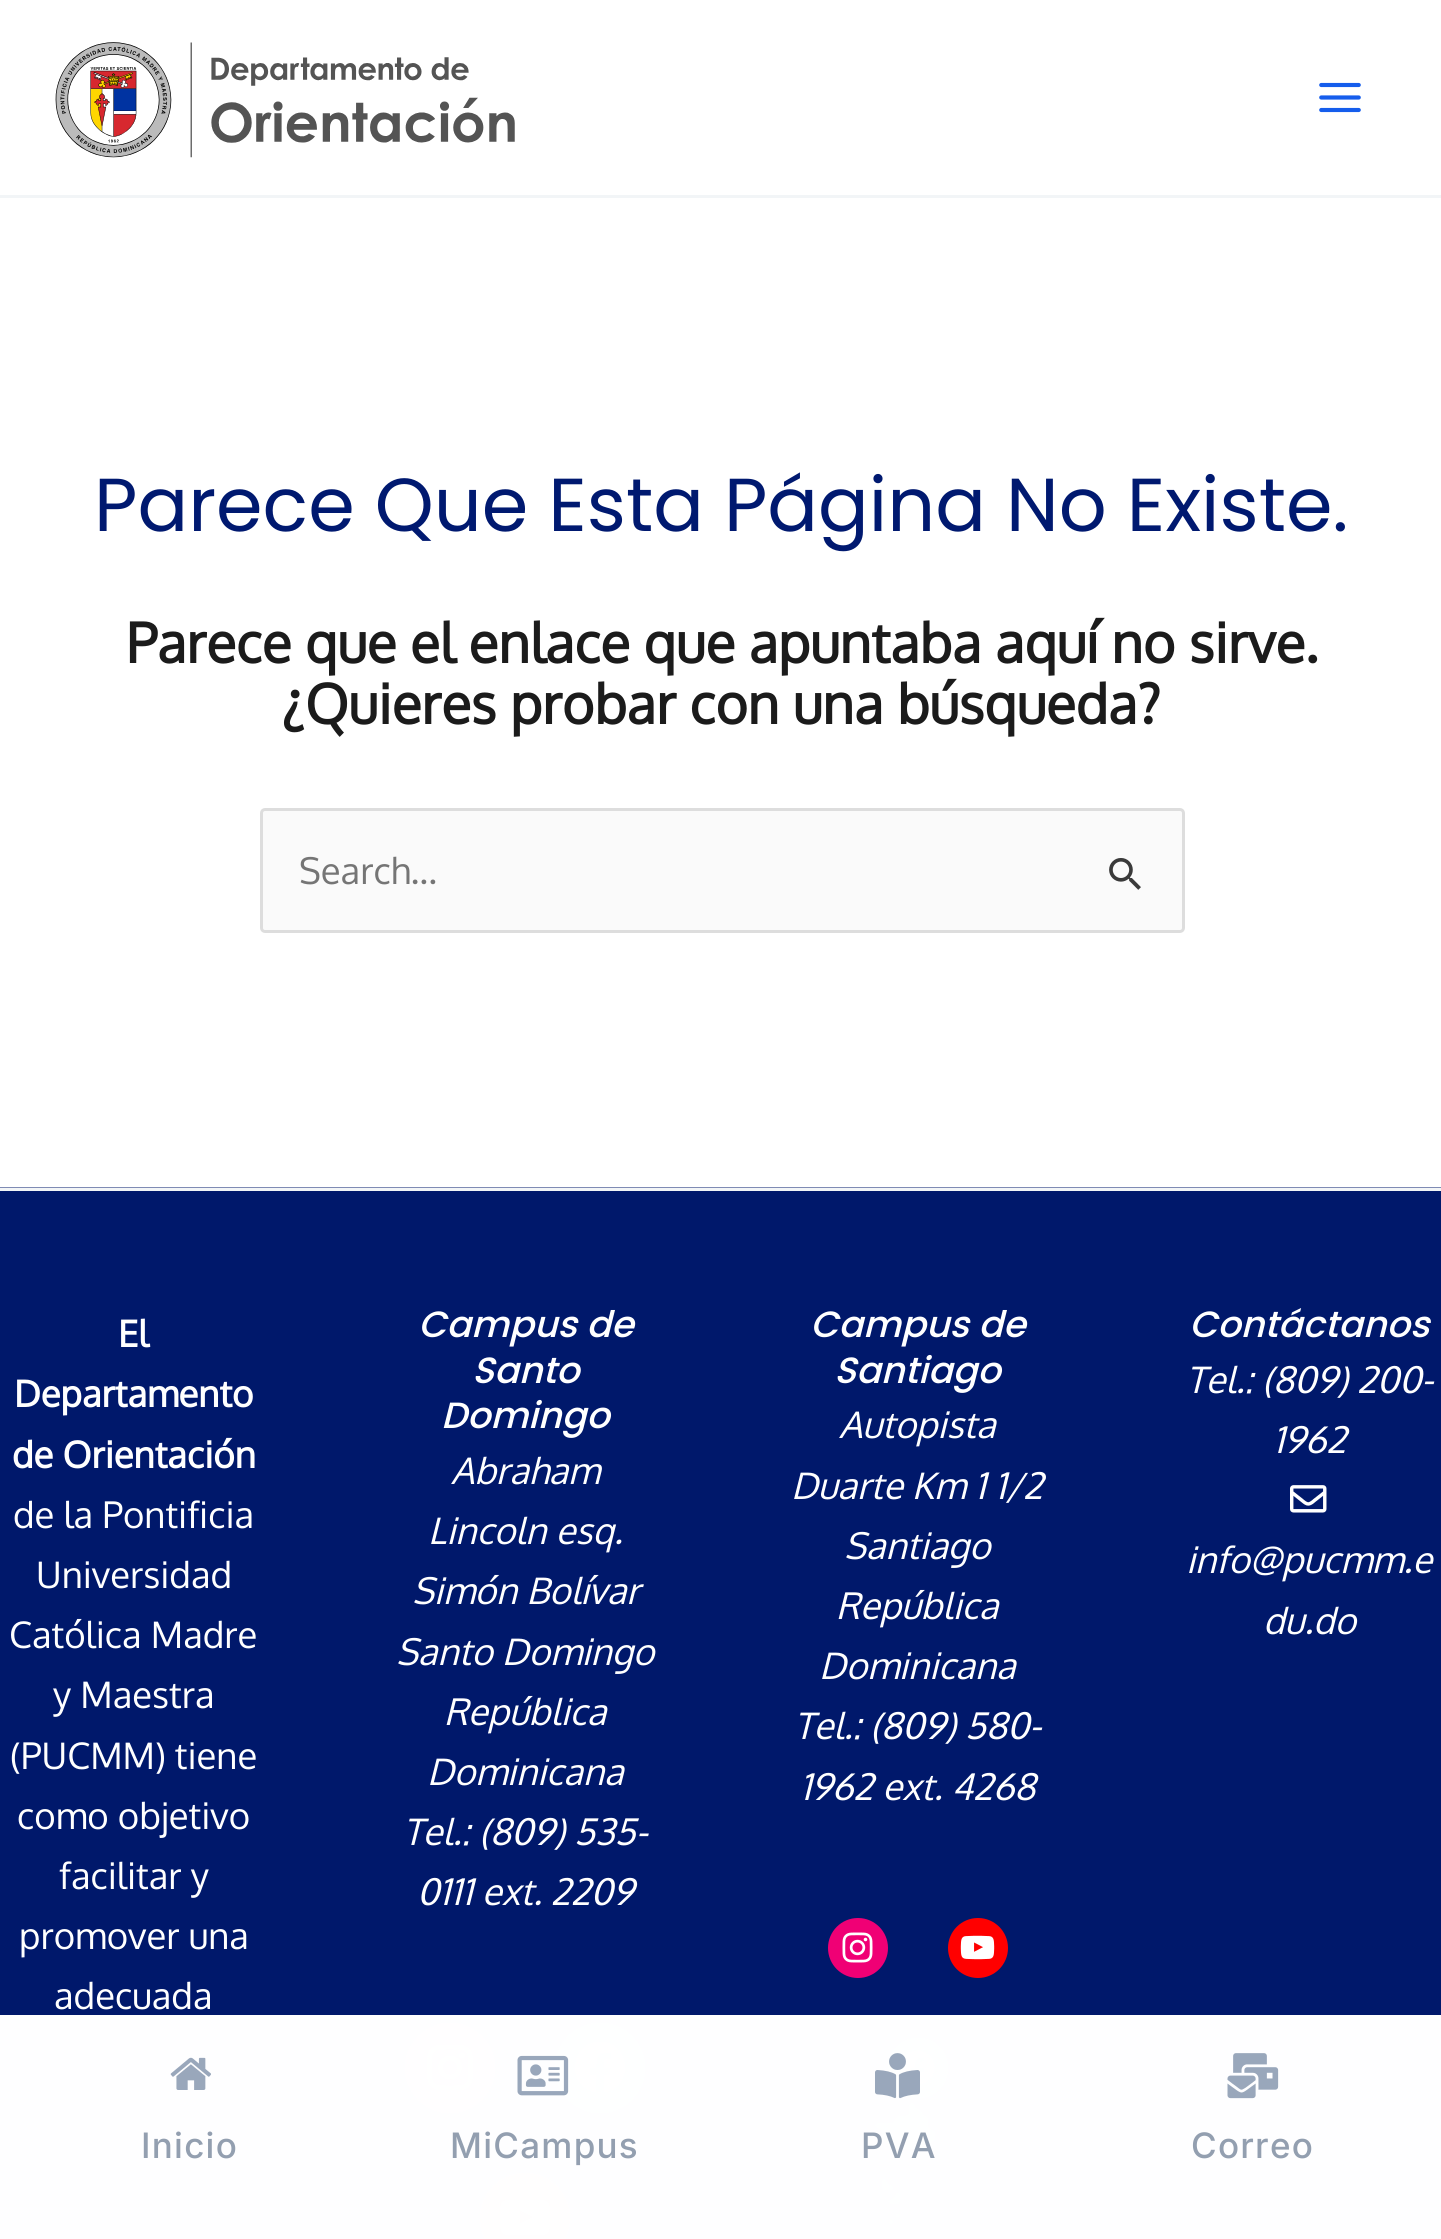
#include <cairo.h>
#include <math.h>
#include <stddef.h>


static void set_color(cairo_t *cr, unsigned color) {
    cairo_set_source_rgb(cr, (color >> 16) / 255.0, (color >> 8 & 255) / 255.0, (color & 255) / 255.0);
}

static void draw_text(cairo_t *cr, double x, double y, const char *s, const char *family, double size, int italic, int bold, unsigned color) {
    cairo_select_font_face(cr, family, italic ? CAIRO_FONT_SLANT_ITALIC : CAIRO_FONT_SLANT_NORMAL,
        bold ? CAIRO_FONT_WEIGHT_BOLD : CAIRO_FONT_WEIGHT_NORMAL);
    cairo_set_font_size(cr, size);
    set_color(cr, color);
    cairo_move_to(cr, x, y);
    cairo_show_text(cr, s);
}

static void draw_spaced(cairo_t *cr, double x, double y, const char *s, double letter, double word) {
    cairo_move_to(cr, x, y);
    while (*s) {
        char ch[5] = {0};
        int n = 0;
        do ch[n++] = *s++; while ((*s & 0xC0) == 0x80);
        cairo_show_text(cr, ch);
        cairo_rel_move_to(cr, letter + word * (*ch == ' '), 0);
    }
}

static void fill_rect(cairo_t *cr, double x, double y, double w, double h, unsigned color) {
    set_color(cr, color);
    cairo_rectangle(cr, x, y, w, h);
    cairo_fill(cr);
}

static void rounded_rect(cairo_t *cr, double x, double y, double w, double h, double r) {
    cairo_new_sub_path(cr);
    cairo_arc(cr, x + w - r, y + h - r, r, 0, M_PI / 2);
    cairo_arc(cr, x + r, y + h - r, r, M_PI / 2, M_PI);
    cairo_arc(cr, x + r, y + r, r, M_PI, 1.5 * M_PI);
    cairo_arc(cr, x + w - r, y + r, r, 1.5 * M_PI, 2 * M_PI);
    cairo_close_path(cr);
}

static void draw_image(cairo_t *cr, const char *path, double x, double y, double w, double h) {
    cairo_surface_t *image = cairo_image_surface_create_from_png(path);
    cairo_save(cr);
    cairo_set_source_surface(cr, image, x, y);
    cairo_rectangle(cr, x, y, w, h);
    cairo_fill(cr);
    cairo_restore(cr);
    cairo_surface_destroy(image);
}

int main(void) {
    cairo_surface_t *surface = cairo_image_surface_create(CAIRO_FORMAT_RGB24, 1441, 2239);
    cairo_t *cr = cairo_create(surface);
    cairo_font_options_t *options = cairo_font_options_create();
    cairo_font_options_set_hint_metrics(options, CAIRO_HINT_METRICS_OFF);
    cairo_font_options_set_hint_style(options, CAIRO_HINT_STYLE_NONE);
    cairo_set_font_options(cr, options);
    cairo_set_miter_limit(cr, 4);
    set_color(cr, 0xFFFFFF);
    cairo_paint(cr);
    fill_rect(cr, 0, 195, 1441, 3, 0xF2F5F7);
    draw_image(cr, "assets/img1.png", 55, 42, 460, 116);
    draw_image(cr, "assets/img2.png", 1319, 82, 42, 31);
    draw_text(cr, 94, 531, "Parece Que Esta Página No Existe.", "Poppins", 75, 0, 0, 0x001970);
    draw_text(cr, 126, 663, "Parece que el enlace que apuntaba aquí no sirve.", "Oxygen", 54.75, 0, 1, 0x1B1B1B);
    draw_text(cr, 282, 724, "¿Quieres probar con una búsqueda?", "Oxygen", 54.75, 0, 1, 0x1B1B1B);
    set_color(cr, 0xFAFAFA);
    rounded_rect(cr, 261.5, 809.5, 922, 122, 3.5);
    cairo_fill_preserve(cr);
    set_color(cr, 0xDDDDDD);
    cairo_set_line_width(cr, 3);
    cairo_stroke(cr);
    draw_text(cr, 299, 884, "Search...", "Oxygen", 36.5, 0, 0, 0x757575);
    draw_image(cr, "assets/img3.png", 1109, 858, 32, 32);
    draw_image(cr, "assets/img4.png", 0, 1187, 1441, 1052);
    fill_rect(cr, 0, 1188, 1441, 3, 0xF2F5F7);
    draw_text(cr, 118, 1347, "El", "Oxygen", 36.5, 0, 1, 0xFFFFFF);
    draw_text(cr, 14, 1407, "Departamento", "Oxygen", 36.5, 0, 1, 0xFFFFFF);
    draw_text(cr, 12, 1468, "de Orientación", "Oxygen", 36.5, 0, 1, 0xFFFFFF);
    draw_text(cr, 13, 1528, "de la Pontificia", "Oxygen", 36.5, 0, 0, 0xFFFFFF);
    draw_text(cr, 36, 1588, "Universidad", "Oxygen", 36.5, 0, 0, 0xFFFFFF);
    draw_text(cr, 9, 1648, "Católica Madre", "Oxygen", 36.5, 0, 0, 0xFFFFFF);
    draw_text(cr, 53, 1708, "y Maestra", "Oxygen", 36.5, 0, 0, 0xFFFFFF);
    draw_text(cr, 10, 1769, "(PUCMM) tiene", "Oxygen", 36.5, 0, 0, 0xFFFFFF);
    draw_text(cr, 17, 1829, "como objetivo", "Oxygen", 36.5, 0, 0, 0xFFFFFF);
    draw_text(cr, 59, 1889, "facilitar y", "Oxygen", 36.5, 0, 0, 0xFFFFFF);
    draw_text(cr, 19, 1949, "promover una", "Oxygen", 36.5, 0, 0, 0xFFFFFF);
    draw_text(cr, 54, 2009, "adecuada", "Oxygen", 36.5, 0, 0, 0xFFFFFF);
    draw_text(cr, 418, 1337, "Campus de", "Poppins Medium", 36.5, 1, 0, 0xFFFFFF);
    draw_text(cr, 472, 1383, "Santo", "Poppins Medium", 36.5, 1, 0, 0xFFFFFF);
    draw_text(cr, 441, 1428, "Domingo", "Poppins Medium", 36.5, 1, 0, 0xFFFFFF);
    draw_text(cr, 451, 1484, "Abraham", "Oxygen", 36.5, 1, 0, 0xFFFFFF);
    draw_text(cr, 428, 1544, "Lincoln esq.", "Oxygen", 36.5, 1, 0, 0xFFFFFF);
    draw_text(cr, 412, 1604, "Simón Bolívar", "Oxygen", 36.5, 1, 0, 0xFFFFFF);
    draw_text(cr, 396, 1665, "Santo Domingo", "Oxygen", 36.5, 1, 0, 0xFFFFFF);
    draw_text(cr, 444, 1725, "República", "Oxygen", 36.5, 1, 0, 0xFFFFFF);
    draw_text(cr, 427, 1785, "Dominicana", "Oxygen", 36.5, 1, 0, 0xFFFFFF);
    draw_text(cr, 403, 1845, "Tel.: (809) 535-", "Oxygen", 36.5, 1, 0, 0xFFFFFF);
    draw_text(cr, 417, 1905, "0111 ext. 2209", "Oxygen", 36.5, 1, 0, 0xFFFFFF);
    set_color(cr, 0xF00075);
    cairo_new_path(cr);
    cairo_arc(cr, 450, 2068, 45, 0, 2 * M_PI);
    cairo_fill(cr);
    draw_image(cr, "assets/img5.png", 427, 2045, 46, 45);
    set_color(cr, 0x0866FF);
    cairo_arc(cr, 600, 2068, 45, 0, 2 * M_PI);
    cairo_fill(cr);
    set_color(cr, 0xFFFFFF);
    cairo_new_path(cr);
    cairo_move_to(cr, 600, 2042);
    cairo_curve_to(cr, 570, 2042, 566, 2087, 596, 2092);
    cairo_line_to(cr, 596, 2075);
    cairo_line_to(cr, 590, 2075);
    cairo_line_to(cr, 590, 2068);
    cairo_line_to(cr, 596, 2068);
    cairo_curve_to(cr, 596, 2056, 598, 2050, 611, 2053);
    cairo_line_to(cr, 611, 2059);
    cairo_curve_to(cr, 603, 2059, 604, 2060, 604, 2068);
    cairo_line_to(cr, 611, 2068);
    cairo_line_to(cr, 610, 2075);
    cairo_line_to(cr, 604, 2075);
    cairo_line_to(cr, 604, 2092);
    cairo_curve_to(cr, 634, 2087, 630, 2042, 600, 2042);
    cairo_close_path(cr);
    cairo_fill(cr);
    set_color(cr, 0xFF0000);
    cairo_arc(cr, 525, 2218, 45, 0, 2 * M_PI);
    cairo_fill(cr);
    draw_image(cr, "assets/img6.png", 500, 2199, 50, 37);
    draw_text(cr, 810, 1337, "Campus de", "Poppins Medium", 36.5, 1, 0, 0xFFFFFF);
    draw_text(cr, 834, 1383, "Santiago", "Poppins Medium", 36.5, 1, 0, 0xFFFFFF);
    draw_text(cr, 839, 1438, "Autopista", "Oxygen", 36.5, 1, 0, 0xFFFFFF);
    draw_text(cr, 791, 1499, "Duarte Km 1 1/2", "Oxygen", 36.5, 1, 0, 0xFFFFFF);
    draw_text(cr, 844, 1559, "Santiago", "Oxygen", 36.5, 1, 0, 0xFFFFFF);
    draw_text(cr, 836, 1619, "República", "Oxygen", 36.5, 1, 0, 0xFFFFFF);
    draw_text(cr, 819, 1679, "Dominicana", "Oxygen", 36.5, 1, 0, 0xFFFFFF);
    draw_text(cr, 794, 1739, "Tel.: (809) 580-", "Oxygen", 36.5, 1, 0, 0xFFFFFF);
    draw_text(cr, 800, 1800, "1962 ext. 4268", "Oxygen", 36.5, 1, 0, 0xFFFFFF);
    set_color(cr, 0xF00075);
    cairo_new_path(cr);
    cairo_arc(cr, 858, 1948, 30, 0, 2 * M_PI);
    cairo_fill(cr);
    draw_image(cr, "assets/img7.png", 842, 1932, 31, 31);
    set_color(cr, 0xFF0000);
    cairo_arc(cr, 978, 1948, 30, 0, 2 * M_PI);
    cairo_fill(cr);
    draw_image(cr, "assets/img8.png", 960, 1935, 35, 25);
    set_color(cr, 0x0866FF);
    cairo_arc(cr, 918, 2068, 30, 0, 2 * M_PI);
    cairo_fill(cr);
    draw_image(cr, "assets/img9.png", 901, 2050, 34, 34);
    draw_text(cr, 1189, 1337, "Contáctanos", "Poppins Medium", 36.5, 1, 0, 0xFFFFFF);
    draw_text(cr, 1186, 1393, "Tel.: (809) 200-", "Oxygen", 36.5, 1, 0, 0xFFFFFF);
    draw_text(cr, 1273, 1453, "1962", "Oxygen", 36.5, 1, 0, 0xFFFFFF);
    draw_image(cr, "assets/img10.png", 1290, 1485, 37, 28);
    draw_text(cr, 1186, 1573, "info@pucmm.e", "Oxygen", 36.5, 1, 0, 0xFFFFFF);
    draw_text(cr, 1263, 1634, "du.do", "Oxygen", 36.5, 1, 0, 0xFFFFFF);
    cairo_set_source_rgba(cr, 1, 1, 1, 0.95);
    cairo_rectangle(cr, 0, 2015, 1441, 224);
    cairo_fill(cr);
    cairo_rectangle(cr, 0, 2015, 1441, 224);
    cairo_fill(cr);
    draw_image(cr, "assets/img11.png", 170, 2057, 41, 33);
    cairo_select_font_face(cr, "Inter Medium", CAIRO_FONT_SLANT_NORMAL, CAIRO_FONT_WEIGHT_NORMAL);
    cairo_set_font_size(cr, 35);
    set_color(cr, 0x939FB0);
    draw_spaced(cr, 141, 2158, "Inicio", 1.25, 0);
    draw_image(cr, "assets/img12.png", 517, 2055, 52, 41);
    draw_spaced(cr, 450, 2158, "MiCampus", 1.25, 0);
    draw_image(cr, "assets/img13.png", 875, 2053, 45, 46);
    draw_spaced(cr, 861, 2158, "PVA", 1.25, 0);
    draw_image(cr, "assets/img14.png", 1227, 2053, 52, 46);
    draw_spaced(cr, 1191, 2158, "Correo", 1.25, 0);
    cairo_surface_write_to_png(surface, "output.png");
    cairo_font_options_destroy(options);
    cairo_destroy(cr);
    cairo_surface_destroy(surface);
    return 0;
}
